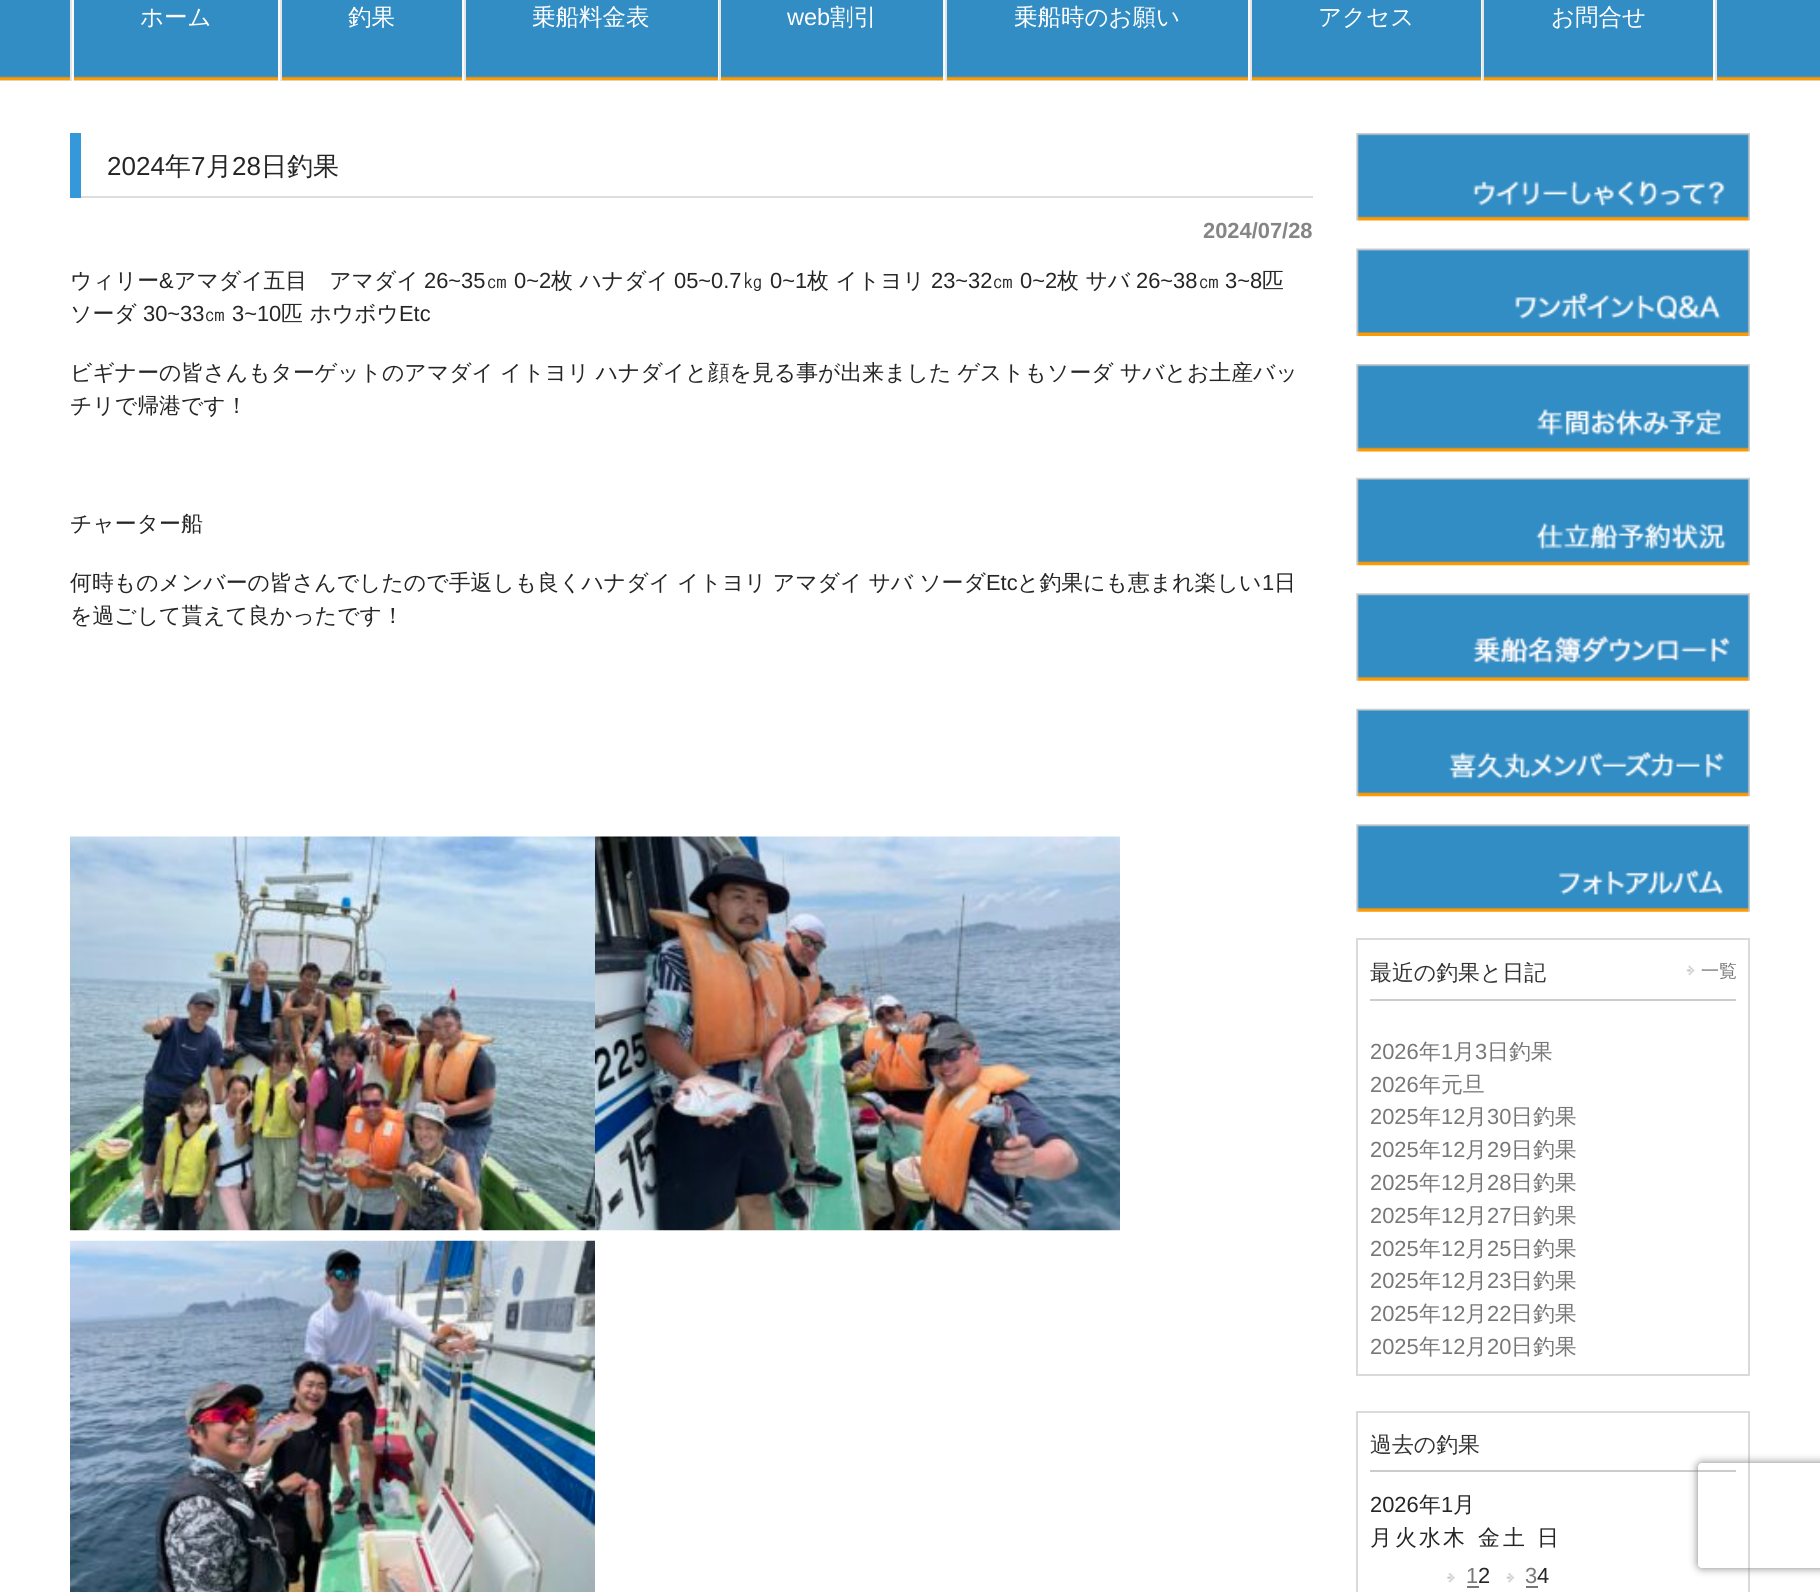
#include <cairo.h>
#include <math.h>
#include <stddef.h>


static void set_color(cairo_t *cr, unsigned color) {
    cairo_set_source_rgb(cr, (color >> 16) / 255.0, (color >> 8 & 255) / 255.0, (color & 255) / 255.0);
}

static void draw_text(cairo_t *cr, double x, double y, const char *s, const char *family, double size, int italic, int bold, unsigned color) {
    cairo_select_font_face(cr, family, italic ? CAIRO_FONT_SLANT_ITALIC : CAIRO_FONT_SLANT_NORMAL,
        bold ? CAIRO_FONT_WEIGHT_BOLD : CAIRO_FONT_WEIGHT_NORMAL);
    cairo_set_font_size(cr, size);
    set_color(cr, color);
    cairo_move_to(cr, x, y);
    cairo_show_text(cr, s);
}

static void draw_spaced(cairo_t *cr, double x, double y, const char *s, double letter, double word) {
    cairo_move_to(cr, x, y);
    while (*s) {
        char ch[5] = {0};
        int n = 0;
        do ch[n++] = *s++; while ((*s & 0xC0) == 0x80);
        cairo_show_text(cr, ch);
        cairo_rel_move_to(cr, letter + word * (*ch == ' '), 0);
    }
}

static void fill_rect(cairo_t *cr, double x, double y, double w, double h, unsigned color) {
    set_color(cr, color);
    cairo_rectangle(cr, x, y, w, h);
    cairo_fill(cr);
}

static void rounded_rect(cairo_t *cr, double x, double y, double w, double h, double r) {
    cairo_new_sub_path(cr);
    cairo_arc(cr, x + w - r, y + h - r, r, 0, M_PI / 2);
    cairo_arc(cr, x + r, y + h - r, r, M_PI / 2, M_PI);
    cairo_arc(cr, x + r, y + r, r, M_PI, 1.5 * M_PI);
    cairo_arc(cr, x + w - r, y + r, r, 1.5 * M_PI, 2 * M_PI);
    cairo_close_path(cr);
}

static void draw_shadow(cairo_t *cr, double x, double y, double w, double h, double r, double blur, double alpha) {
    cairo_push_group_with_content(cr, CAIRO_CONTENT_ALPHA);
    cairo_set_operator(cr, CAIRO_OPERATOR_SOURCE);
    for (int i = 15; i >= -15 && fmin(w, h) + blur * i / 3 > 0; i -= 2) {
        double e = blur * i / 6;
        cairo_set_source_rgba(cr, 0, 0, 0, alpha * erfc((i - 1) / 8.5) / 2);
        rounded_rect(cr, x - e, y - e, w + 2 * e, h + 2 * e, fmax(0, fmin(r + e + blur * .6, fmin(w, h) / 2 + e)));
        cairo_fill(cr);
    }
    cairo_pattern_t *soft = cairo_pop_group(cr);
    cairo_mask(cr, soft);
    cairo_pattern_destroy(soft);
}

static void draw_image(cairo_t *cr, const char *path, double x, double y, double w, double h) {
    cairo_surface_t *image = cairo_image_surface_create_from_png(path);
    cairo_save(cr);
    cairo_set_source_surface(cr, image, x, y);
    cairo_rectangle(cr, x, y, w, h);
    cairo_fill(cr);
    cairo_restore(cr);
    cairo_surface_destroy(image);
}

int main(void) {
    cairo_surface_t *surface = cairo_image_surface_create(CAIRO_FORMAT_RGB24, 1820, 1592);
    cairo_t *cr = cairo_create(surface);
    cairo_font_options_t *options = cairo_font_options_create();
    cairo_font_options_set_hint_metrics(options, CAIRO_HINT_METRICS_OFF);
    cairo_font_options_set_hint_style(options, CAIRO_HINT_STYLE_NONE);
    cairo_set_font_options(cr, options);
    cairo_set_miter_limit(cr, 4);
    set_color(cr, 0xFFFFFF);
    cairo_paint(cr);
    draw_image(cr, "assets/img1.png", 0, 0, 1820, 81);
    fill_rect(cr, 1715, 0, 2, 81, 0xE5E5E5);
    fill_rect(cr, 70, 0, 2, 81, 0xE5E5E5);
    fill_rect(cr, 278, 0, 2, 81, 0xFBFBFB);
    fill_rect(cr, 72, 0, 2, 81, 0xFBFBFB);
    draw_text(cr, 140, 25, "ホーム", "WenQuanYi Zen Hei Medium", 23.5, 0, 0, 0xFFFFFF);
    fill_rect(cr, 462, 0, 2, 81, 0xFBFBFB);
    fill_rect(cr, 280, 0, 2, 81, 0xE5E5E5);
    draw_text(cr, 348, 25, "釣果", "WenQuanYi Zen Hei Medium", 23.5, 0, 0, 0xFFFFFF);
    fill_rect(cr, 718, 0, 1, 81, 0xFBFBFB);
    fill_rect(cr, 464, 0, 2, 81, 0xE5E5E5);
    draw_text(cr, 532, 25, "乗船料金表", "WenQuanYi Zen Hei Medium", 23.5, 0, 0, 0xFFFFFF);
    fill_rect(cr, 943, 0, 2, 81, 0xFBFBFB);
    fill_rect(cr, 719, 0, 2, 81, 0xE5E5E5);
    draw_text(cr, 787, 25, "web", "Liberation Sans", 23.5, 0, 0, 0xFFFFFF);
    draw_text(cr, 830, 25, "割引", "WenQuanYi Zen Hei Medium", 23.5, 0, 0, 0xFFFFFF);
    fill_rect(cr, 1248, 0, 2, 81, 0xFBFBFB);
    fill_rect(cr, 945, 0, 2, 81, 0xE5E5E5);
    draw_text(cr, 1014, 25, "乗船時のお願い", "WenQuanYi Zen Hei Medium", 23.5, 0, 0, 0xFFFFFF);
    fill_rect(cr, 1481, 0, 1, 81, 0xFBFBFB);
    fill_rect(cr, 1250, 0, 2, 81, 0xE5E5E5);
    draw_text(cr, 1318, 25, "アクセス", "WenQuanYi Zen Hei Medium", 23.5, 0, 0, 0xFFFFFF);
    fill_rect(cr, 1713, 0, 2, 81, 0xFBFBFB);
    fill_rect(cr, 1482, 0, 2, 81, 0xE5E5E5);
    draw_text(cr, 1551, 25, "お問合せ", "WenQuanYi Zen Hei Medium", 23.5, 0, 0, 0xFFFFFF);
    fill_rect(cr, 70, 133, 11, 65, 0x3498DB);
    draw_text(cr, 107, 175, "2024", "Liberation Sans", 26, 0, 0, 0x252525);
    draw_text(cr, 165, 175, "年", "WenQuanYi Zen Hei Medium", 26, 0, 0, 0x252525);
    draw_text(cr, 191, 175, "7", "Liberation Sans", 26, 0, 0, 0x252525);
    draw_text(cr, 206, 175, "月", "WenQuanYi Zen Hei Medium", 26, 0, 0, 0x252525);
    draw_text(cr, 232, 175, "28", "Liberation Sans", 26, 0, 0, 0x252525);
    draw_text(cr, 261, 175, "日釣果", "WenQuanYi Zen Hei Medium", 26, 0, 0, 0x252525);
    fill_rect(cr, 81, 196, 1232, 2, 0xDDDDDD);
    draw_text(cr, 1203, 238, "2024/07/28", "Liberation Sans", 21.88, 0, 1, 0x858585);
    draw_text(cr, 70, 288, "ウィリー", "WenQuanYi Zen Hei Medium", 21.88, 0, 0, 0x252525);
    draw_text(cr, 159, 288, "&", "Liberation Sans", 21.88, 0, 0, 0x252525);
    draw_text(cr, 174, 288, "アマダイ五目　アマダイ", "WenQuanYi Zen Hei Medium", 21.88, 0, 0, 0x252525);
    draw_text(cr, 424, 288, "26~35", "Liberation Sans", 21.88, 0, 0, 0x252525);
    draw_text(cr, 486, 288, "㎝", "WenQuanYi Zen Hei Medium", 21.88, 0, 0, 0x252525);
    draw_text(cr, 514, 288, "0~2", "Liberation Sans", 21.88, 0, 0, 0x252525);
    draw_text(cr, 551, 288, "枚 ハナダイ", "WenQuanYi Zen Hei Medium", 21.88, 0, 0, 0x252525);
    draw_text(cr, 674, 288, "05~0.7", "Liberation Sans", 21.88, 0, 0, 0x252525);
    draw_text(cr, 742, 288, "㎏", "WenQuanYi Zen Hei Medium", 21.88, 0, 0, 0x252525);
    draw_text(cr, 770, 288, "0~1", "Liberation Sans", 21.88, 0, 0, 0x252525);
    draw_text(cr, 807, 288, "枚 イトヨリ", "WenQuanYi Zen Hei Medium", 21.88, 0, 0, 0x252525);
    draw_text(cr, 931, 288, "23~32", "Liberation Sans", 21.88, 0, 0, 0x252525);
    draw_text(cr, 992, 288, "㎝", "WenQuanYi Zen Hei Medium", 21.88, 0, 0, 0x252525);
    draw_text(cr, 1020, 288, "0~2", "Liberation Sans", 21.88, 0, 0, 0x252525);
    draw_text(cr, 1057, 288, "枚 サバ", "WenQuanYi Zen Hei Medium", 21.88, 0, 0, 0x252525);
    draw_text(cr, 1136, 288, "26~38", "Liberation Sans", 21.88, 0, 0, 0x252525);
    draw_text(cr, 1198, 288, "㎝", "WenQuanYi Zen Hei Medium", 21.88, 0, 0, 0x252525);
    draw_text(cr, 1225, 288, "3~8", "Liberation Sans", 21.88, 0, 0, 0x252525);
    draw_text(cr, 1262, 288, "匹", "WenQuanYi Zen Hei Medium", 21.88, 0, 0, 0x252525);
    draw_text(cr, 70, 321, "ソーダ", "WenQuanYi Zen Hei Medium", 21.88, 0, 0, 0x252525);
    draw_text(cr, 143, 321, "30~33", "Liberation Sans", 21.88, 0, 0, 0x252525);
    draw_text(cr, 204, 321, "㎝", "WenQuanYi Zen Hei Medium", 21.88, 0, 0, 0x252525);
    draw_text(cr, 232, 321, "3~10", "Liberation Sans", 21.88, 0, 0, 0x252525);
    draw_text(cr, 281, 321, "匹 ホウボウ", "WenQuanYi Zen Hei Medium", 21.88, 0, 0, 0x252525);
    draw_text(cr, 399, 321, "Etc", "Liberation Sans", 21.88, 0, 0, 0x252525);
    cairo_select_font_face(cr, "WenQuanYi Zen Hei Medium", CAIRO_FONT_SLANT_NORMAL, CAIRO_FONT_WEIGHT_NORMAL);
    draw_spaced(cr, 70, 380, "ビギナーの皆さんもターゲットのアマダイ イトヨリ ハナダイと顔を見る事が出来ました ゲストもソーダ サバとお土産バッ", 0, -0.5);
    draw_text(cr, 70, 413, "チリで帰港です！", "WenQuanYi Zen Hei Medium", 21.88, 0, 0, 0x252525);
    draw_text(cr, 70, 531, "チャーター船", "WenQuanYi Zen Hei Medium", 21.88, 0, 0, 0x252525);
    draw_spaced(cr, 70, 590, "何時ものメンバーの皆さんでしたので手返しも良くハナダイ イトヨリ アマダイ サバ ソーダ", 0, -0.5);
    draw_text(cr, 986, 590, "Etc", "Liberation Sans", 21.88, 0, 0, 0x252525);
    draw_text(cr, 1017, 590, "と釣果にも恵まれ楽しい", "WenQuanYi Zen Hei Medium", 21.88, 0, 0, 0x252525);
    draw_text(cr, 1262, 590, "1", "Liberation Sans", 21.88, 0, 0, 0x252525);
    draw_text(cr, 1274, 590, "日", "WenQuanYi Zen Hei Medium", 21.88, 0, 0, 0x252525);
    draw_text(cr, 70, 623, "を過ごして貰えて良かったです！", "WenQuanYi Zen Hei Medium", 21.88, 0, 0, 0x252525);
    draw_image(cr, "assets/img2.png", 70, 836, 525, 395);
    draw_image(cr, "assets/img3.png", 595, 836, 525, 395);
    draw_image(cr, "assets/img4.png", 70, 1240, 525, 352);
    draw_image(cr, "assets/img5.png", 1356, 133, 394, 88);
    draw_image(cr, "assets/img6.png", 1356, 248, 394, 88);
    draw_image(cr, "assets/img7.png", 1356, 364, 394, 88);
    draw_image(cr, "assets/img8.png", 1356, 477, 394, 89);
    draw_image(cr, "assets/img9.png", 1356, 593, 394, 88);
    draw_image(cr, "assets/img10.png", 1356, 708, 394, 89);
    draw_image(cr, "assets/img11.png", 1356, 824, 394, 88);
    cairo_rectangle(cr, 1357, 939, 392, 436);
    set_color(cr, 0xDADADA);
    cairo_stroke(cr);
    fill_rect(cr, 1370, 999, 366, 2, 0xCCCCCC);
    draw_text(cr, 1370, 980, "最近の釣果と日記", "WenQuanYi Zen Hei Medium", 21.88, 0, 0, 0x333333);
    draw_image(cr, "assets/img12.png", 1686, 965, 9, 11);
    draw_text(cr, 1701, 977, "一覧", "WenQuanYi Zen Hei Medium", 18, 0, 0, 0x777777);
    draw_text(cr, 1370, 1059, "2026", "Liberation Sans", 21.88, 0, 0, 0x777777);
    draw_text(cr, 1419, 1059, "年", "WenQuanYi Zen Hei Medium", 21.88, 0, 0, 0x777777);
    draw_text(cr, 1441, 1059, "1", "Liberation Sans", 21.88, 0, 0, 0x777777);
    draw_text(cr, 1453, 1059, "月", "WenQuanYi Zen Hei Medium", 21.88, 0, 0, 0x777777);
    draw_text(cr, 1475, 1059, "3", "Liberation Sans", 21.88, 0, 0, 0x777777);
    draw_text(cr, 1487, 1059, "日釣果", "WenQuanYi Zen Hei Medium", 21.88, 0, 0, 0x777777);
    draw_text(cr, 1370, 1092, "2026", "Liberation Sans", 21.88, 0, 0, 0x777777);
    draw_text(cr, 1419, 1092, "年元旦", "WenQuanYi Zen Hei Medium", 21.88, 0, 0, 0x777777);
    draw_text(cr, 1370, 1124, "2025", "Liberation Sans", 21.88, 0, 0, 0x777777);
    draw_text(cr, 1419, 1124, "年", "WenQuanYi Zen Hei Medium", 21.88, 0, 0, 0x777777);
    draw_text(cr, 1441, 1124, "12", "Liberation Sans", 21.88, 0, 0, 0x777777);
    draw_text(cr, 1465, 1124, "月", "WenQuanYi Zen Hei Medium", 21.88, 0, 0, 0x777777);
    draw_text(cr, 1487, 1124, "30", "Liberation Sans", 21.88, 0, 0, 0x777777);
    draw_text(cr, 1511, 1124, "日釣果", "WenQuanYi Zen Hei Medium", 21.88, 0, 0, 0x777777);
    draw_text(cr, 1370, 1157, "2025", "Liberation Sans", 21.88, 0, 0, 0x777777);
    draw_text(cr, 1419, 1157, "年", "WenQuanYi Zen Hei Medium", 21.88, 0, 0, 0x777777);
    draw_text(cr, 1441, 1157, "12", "Liberation Sans", 21.88, 0, 0, 0x777777);
    draw_text(cr, 1465, 1157, "月", "WenQuanYi Zen Hei Medium", 21.88, 0, 0, 0x777777);
    draw_text(cr, 1487, 1157, "29", "Liberation Sans", 21.88, 0, 0, 0x777777);
    draw_text(cr, 1511, 1157, "日釣果", "WenQuanYi Zen Hei Medium", 21.88, 0, 0, 0x777777);
    draw_text(cr, 1370, 1190, "2025", "Liberation Sans", 21.88, 0, 0, 0x777777);
    draw_text(cr, 1419, 1190, "年", "WenQuanYi Zen Hei Medium", 21.88, 0, 0, 0x777777);
    draw_text(cr, 1441, 1190, "12", "Liberation Sans", 21.88, 0, 0, 0x777777);
    draw_text(cr, 1465, 1190, "月", "WenQuanYi Zen Hei Medium", 21.88, 0, 0, 0x777777);
    draw_text(cr, 1487, 1190, "28", "Liberation Sans", 21.88, 0, 0, 0x777777);
    draw_text(cr, 1511, 1190, "日釣果", "WenQuanYi Zen Hei Medium", 21.88, 0, 0, 0x777777);
    draw_text(cr, 1370, 1223, "2025", "Liberation Sans", 21.88, 0, 0, 0x777777);
    draw_text(cr, 1419, 1223, "年", "WenQuanYi Zen Hei Medium", 21.88, 0, 0, 0x777777);
    draw_text(cr, 1441, 1223, "12", "Liberation Sans", 21.88, 0, 0, 0x777777);
    draw_text(cr, 1465, 1223, "月", "WenQuanYi Zen Hei Medium", 21.88, 0, 0, 0x777777);
    draw_text(cr, 1487, 1223, "27", "Liberation Sans", 21.88, 0, 0, 0x777777);
    draw_text(cr, 1511, 1223, "日釣果", "WenQuanYi Zen Hei Medium", 21.88, 0, 0, 0x777777);
    draw_text(cr, 1370, 1256, "2025", "Liberation Sans", 21.88, 0, 0, 0x777777);
    draw_text(cr, 1419, 1256, "年", "WenQuanYi Zen Hei Medium", 21.88, 0, 0, 0x777777);
    draw_text(cr, 1441, 1256, "12", "Liberation Sans", 21.88, 0, 0, 0x777777);
    draw_text(cr, 1465, 1256, "月", "WenQuanYi Zen Hei Medium", 21.88, 0, 0, 0x777777);
    draw_text(cr, 1487, 1256, "25", "Liberation Sans", 21.88, 0, 0, 0x777777);
    draw_text(cr, 1511, 1256, "日釣果", "WenQuanYi Zen Hei Medium", 21.88, 0, 0, 0x777777);
    draw_text(cr, 1370, 1288, "2025", "Liberation Sans", 21.88, 0, 0, 0x777777);
    draw_text(cr, 1419, 1288, "年", "WenQuanYi Zen Hei Medium", 21.88, 0, 0, 0x777777);
    draw_text(cr, 1441, 1288, "12", "Liberation Sans", 21.88, 0, 0, 0x777777);
    draw_text(cr, 1465, 1288, "月", "WenQuanYi Zen Hei Medium", 21.88, 0, 0, 0x777777);
    draw_text(cr, 1487, 1288, "23", "Liberation Sans", 21.88, 0, 0, 0x777777);
    draw_text(cr, 1511, 1288, "日釣果", "WenQuanYi Zen Hei Medium", 21.88, 0, 0, 0x777777);
    draw_text(cr, 1370, 1321, "2025", "Liberation Sans", 21.88, 0, 0, 0x777777);
    draw_text(cr, 1419, 1321, "年", "WenQuanYi Zen Hei Medium", 21.88, 0, 0, 0x777777);
    draw_text(cr, 1441, 1321, "12", "Liberation Sans", 21.88, 0, 0, 0x777777);
    draw_text(cr, 1465, 1321, "月", "WenQuanYi Zen Hei Medium", 21.88, 0, 0, 0x777777);
    draw_text(cr, 1487, 1321, "22", "Liberation Sans", 21.88, 0, 0, 0x777777);
    draw_text(cr, 1511, 1321, "日釣果", "WenQuanYi Zen Hei Medium", 21.88, 0, 0, 0x777777);
    draw_text(cr, 1370, 1354, "2025", "Liberation Sans", 21.88, 0, 0, 0x777777);
    draw_text(cr, 1419, 1354, "年", "WenQuanYi Zen Hei Medium", 21.88, 0, 0, 0x777777);
    draw_text(cr, 1441, 1354, "12", "Liberation Sans", 21.88, 0, 0, 0x777777);
    draw_text(cr, 1465, 1354, "月", "WenQuanYi Zen Hei Medium", 21.88, 0, 0, 0x777777);
    draw_text(cr, 1487, 1354, "20", "Liberation Sans", 21.88, 0, 0, 0x777777);
    draw_text(cr, 1511, 1354, "日釣果", "WenQuanYi Zen Hei Medium", 21.88, 0, 0, 0x777777);
    cairo_rectangle(cr, 1357, 1412, 392, 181);
    set_color(cr, 0xDADADA);
    cairo_stroke(cr);
    fill_rect(cr, 1370, 1470, 366, 2, 0xCCCCCC);
    draw_text(cr, 1370, 1452, "過去の釣果", "WenQuanYi Zen Hei Medium", 21.88, 0, 0, 0x333333);
    draw_text(cr, 1370, 1512, "2026", "Liberation Sans", 21.88, 0, 0, 0x252525);
    draw_text(cr, 1419, 1512, "年", "WenQuanYi Zen Hei Medium", 21.88, 0, 0, 0x252525);
    draw_text(cr, 1441, 1512, "1", "Liberation Sans", 21.88, 0, 0, 0x252525);
    draw_text(cr, 1453, 1512, "月", "WenQuanYi Zen Hei Medium", 21.88, 0, 0, 0x252525);
    draw_text(cr, 1370, 1545, "月", "WenQuanYi Zen Hei Medium", 21.88, 0, 0, 0x252525);
    draw_text(cr, 1395, 1545, "火", "WenQuanYi Zen Hei Medium", 21.88, 0, 0, 0x252525);
    draw_text(cr, 1419, 1545, "水", "WenQuanYi Zen Hei Medium", 21.88, 0, 0, 0x252525);
    draw_text(cr, 1443, 1545, "木", "WenQuanYi Zen Hei Medium", 21.88, 0, 0, 0x252525);
    draw_text(cr, 1478, 1545, "金", "WenQuanYi Zen Hei Medium", 21.88, 0, 0, 0x252525);
    draw_text(cr, 1503, 1545, "土", "WenQuanYi Zen Hei Medium", 21.88, 0, 0, 0x252525);
    draw_text(cr, 1537, 1545, "日", "WenQuanYi Zen Hei Medium", 21.88, 0, 0, 0x252525);
    draw_image(cr, "assets/img13.png", 1447, 1573, 8, 10);
    draw_text(cr, 1466, 1583, "1", "Liberation Sans", 21.88, 0, 0, 0x777777);
    fill_rect(cr, 1467, 1586, 12, 2, 0x777777);
    draw_text(cr, 1478, 1583, "2", "Liberation Sans", 21.88, 0, 0, 0x252525);
    draw_image(cr, "assets/img14.png", 1506, 1572, 9, 11);
    draw_text(cr, 1525, 1583, "3", "Liberation Sans", 21.88, 0, 0, 0x777777);
    fill_rect(cr, 1526, 1586, 12, 2, 0x777777);
    draw_text(cr, 1537, 1583, "4", "Liberation Sans", 21.88, 0, 0, 0x252525);
    cairo_save(cr);
    cairo_set_fill_rule(cr, CAIRO_FILL_RULE_EVEN_ODD);
    cairo_new_path(cr);
    cairo_move_to(cr, 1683, 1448);
    cairo_line_to(cr, 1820, 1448);
    cairo_line_to(cr, 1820, 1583);
    cairo_line_to(cr, 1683, 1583);
    cairo_close_path(cr);
    cairo_move_to(cr, 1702, 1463);
    cairo_line_to(cr, 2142, 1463);
    cairo_curve_to(cr, 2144, 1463, 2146, 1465, 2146, 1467);
    cairo_line_to(cr, 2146, 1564);
    cairo_curve_to(cr, 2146, 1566, 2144, 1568, 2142, 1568);
    cairo_line_to(cr, 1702, 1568);
    cairo_curve_to(cr, 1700, 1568, 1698, 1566, 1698, 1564);
    cairo_line_to(cr, 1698, 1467);
    cairo_curve_to(cr, 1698, 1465, 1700, 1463, 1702, 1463);
    cairo_close_path(cr);
    cairo_clip(cr);
    set_color(cr, 0x808080);
    draw_shadow(cr, 1698, 1463, 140, 105, 4, 4.5, 1);
    cairo_restore(cr);
    cairo_surface_write_to_png(surface, "output.png");
    cairo_font_options_destroy(options);
    cairo_destroy(cr);
    cairo_surface_destroy(surface);
    return 0;
}
